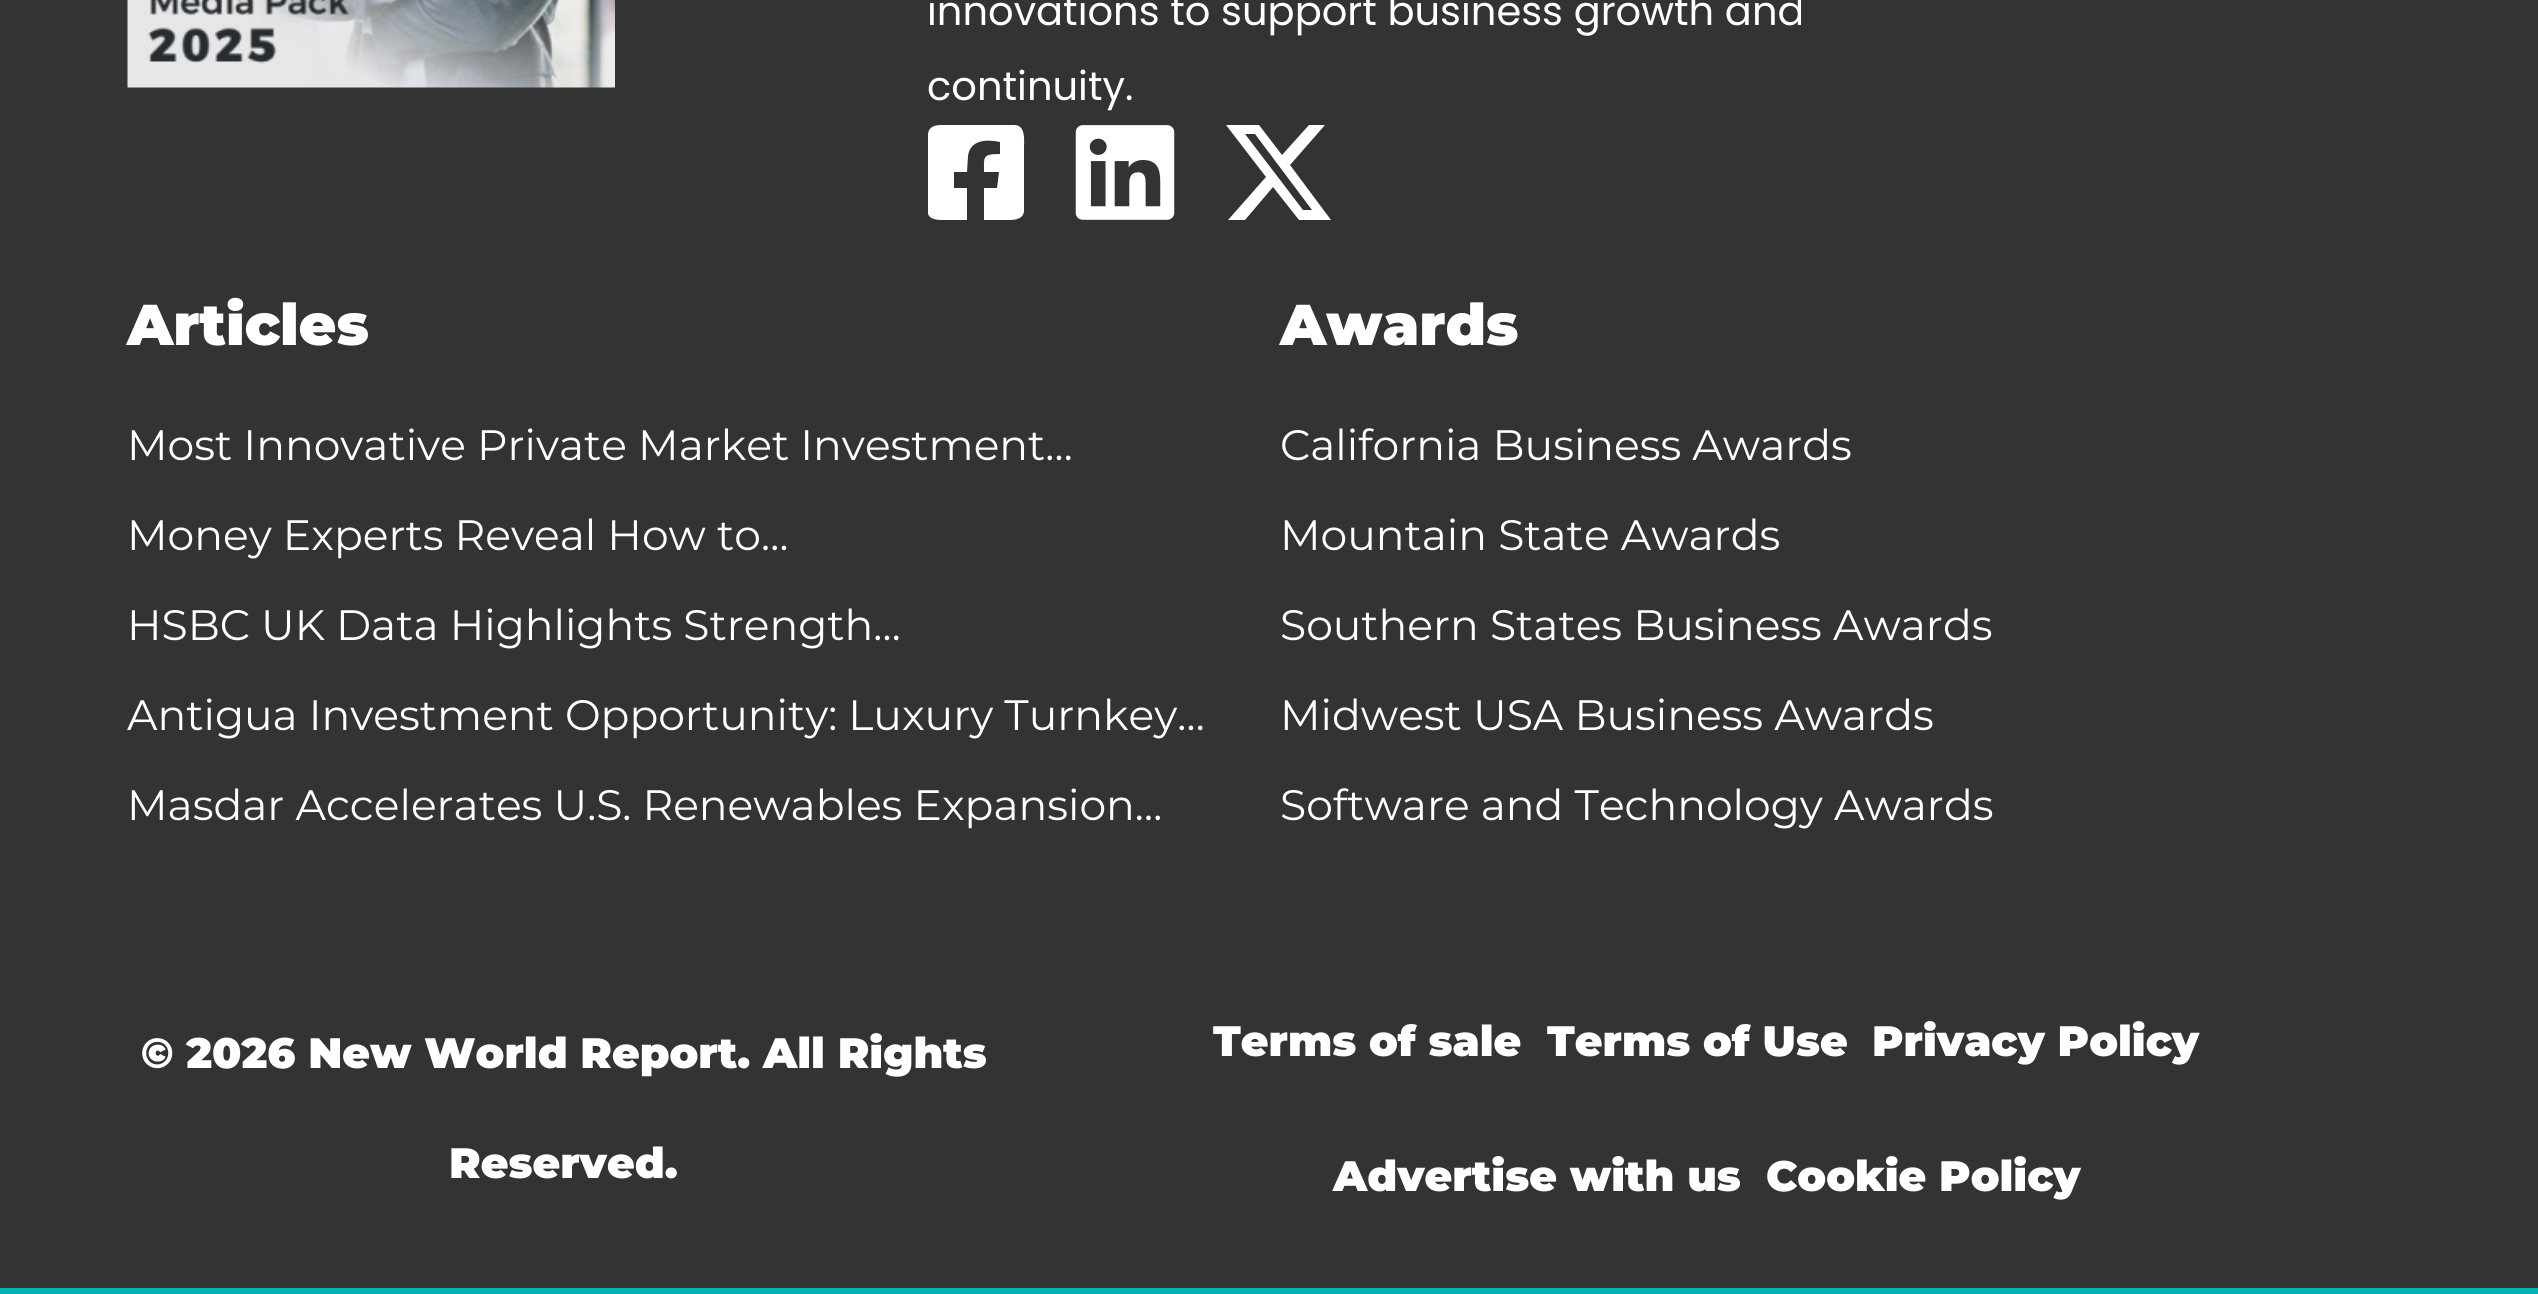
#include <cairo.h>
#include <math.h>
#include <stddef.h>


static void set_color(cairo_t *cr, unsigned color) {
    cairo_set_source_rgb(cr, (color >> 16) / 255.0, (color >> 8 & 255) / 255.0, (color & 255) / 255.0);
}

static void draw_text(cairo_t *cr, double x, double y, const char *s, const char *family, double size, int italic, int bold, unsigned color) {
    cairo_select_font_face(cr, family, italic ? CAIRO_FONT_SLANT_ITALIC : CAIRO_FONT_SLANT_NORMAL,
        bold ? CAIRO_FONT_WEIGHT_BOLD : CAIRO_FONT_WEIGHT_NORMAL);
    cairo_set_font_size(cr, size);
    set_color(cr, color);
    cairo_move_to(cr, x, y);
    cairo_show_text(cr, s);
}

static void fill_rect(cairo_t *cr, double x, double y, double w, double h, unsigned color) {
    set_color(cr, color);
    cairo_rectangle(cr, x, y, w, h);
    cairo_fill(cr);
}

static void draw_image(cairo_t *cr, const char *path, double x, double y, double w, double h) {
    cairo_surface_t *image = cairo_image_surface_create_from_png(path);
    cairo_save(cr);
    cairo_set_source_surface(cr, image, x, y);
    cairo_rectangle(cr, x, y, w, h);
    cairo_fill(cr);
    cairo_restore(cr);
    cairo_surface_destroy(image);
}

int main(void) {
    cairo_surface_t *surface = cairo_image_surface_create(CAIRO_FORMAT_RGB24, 2538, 1294);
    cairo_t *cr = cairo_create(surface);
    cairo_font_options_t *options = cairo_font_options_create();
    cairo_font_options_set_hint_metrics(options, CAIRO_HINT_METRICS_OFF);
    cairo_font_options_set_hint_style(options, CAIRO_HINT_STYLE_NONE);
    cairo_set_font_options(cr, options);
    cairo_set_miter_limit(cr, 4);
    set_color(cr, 0x333333);
    cairo_paint(cr);
    draw_image(cr, "assets/img1.png", 127, 0, 488, 88);
    draw_text(cr, 927, 25, "innovations to support business growth and", "Poppins", 40, 0, 0, 0xFFFFFF);
    draw_text(cr, 927, 100, "continuity.", "Poppins", 40, 0, 0, 0xFFFFFF);
    cairo_save(cr);
    cairo_rectangle(cr, 928, 125, 97, 95);
    cairo_clip(cr);
    cairo_new_path(cr);
    cairo_move_to(cr, 1014, 125);
    cairo_line_to(cr, 950, 125);
    cairo_curve_to(cr, 943, 125, 929, 123, 928, 134);
    cairo_line_to(cr, 927, 197);
    cairo_curve_to(cr, 927, 213, 925, 220, 943, 220);
    cairo_line_to(cr, 967, 220);
    cairo_line_to(cr, 967, 188);
    cairo_line_to(cr, 954, 188);
    cairo_line_to(cr, 954, 172);
    cairo_line_to(cr, 967, 172);
    cairo_line_to(cr, 968, 156);
    cairo_curve_to(cr, 970, 140, 986, 139, 1000, 142);
    cairo_line_to(cr, 1000, 154);
    cairo_curve_to(cr, 982, 154, 984, 157, 984, 172);
    cairo_line_to(cr, 999, 172);
    cairo_line_to(cr, 997, 188);
    cairo_line_to(cr, 984, 188);
    cairo_line_to(cr, 984, 220);
    cairo_line_to(cr, 1004, 220);
    cairo_curve_to(cr, 1011, 220, 1022, 221, 1024, 212);
    cairo_line_to(cr, 1024, 148);
    cairo_curve_to(cr, 1024, 140, 1026, 125, 1014, 125);
    cairo_close_path(cr);
    cairo_fill(cr);
    cairo_restore(cr);
    draw_image(cr, "assets/img2.png", 1075, 125, 100, 95);
    cairo_new_path(cr);
    cairo_move_to(cr, 1309, 125);
    cairo_line_to(cr, 1325, 125);
    cairo_line_to(cr, 1290, 165);
    cairo_line_to(cr, 1331, 220);
    cairo_line_to(cr, 1299, 220);
    cairo_line_to(cr, 1273, 187);
    cairo_line_to(cr, 1245, 220);
    cairo_line_to(cr, 1228, 220);
    cairo_line_to(cr, 1266, 177);
    cairo_line_to(cr, 1226, 125);
    cairo_line_to(cr, 1259, 125);
    cairo_line_to(cr, 1282, 155);
    cairo_close_path(cr);
    cairo_move_to(cr, 1303, 210);
    cairo_line_to(cr, 1312, 210);
    cairo_line_to(cr, 1255, 134);
    cairo_line_to(cr, 1245, 134);
    cairo_close_path(cr);
    cairo_fill(cr);
    draw_text(cr, 127, 345, "Articles", "Montserrat Black", 57.5, 0, 0, 0xFFFFFF);
    draw_text(cr, 127, 460, "Most Innovative Private Market Investment…", "Montserrat", 42.5, 0, 0, 0xFFFFFF);
    draw_text(cr, 127, 550, "Money Experts Reveal How to…", "Montserrat", 42.5, 0, 0, 0xFFFFFF);
    draw_text(cr, 127, 640, "HSBC UK Data Highlights Strength…", "Montserrat", 42.5, 0, 0, 0xFFFFFF);
    draw_text(cr, 127, 730, "Antigua Investment Opportunity: Luxury Turnkey…", "Montserrat", 42.5, 0, 0, 0xFFFFFF);
    draw_text(cr, 127, 820, "Masdar Accelerates U.S. Renewables Expansion…", "Montserrat", 42.5, 0, 0, 0xFFFFFF);
    draw_text(cr, 1280, 345, "Awards", "Montserrat Black", 57.5, 0, 0, 0xFFFFFF);
    draw_text(cr, 1280, 460, "California Business Awards", "Montserrat", 42.5, 0, 0, 0xFFFFFF);
    draw_text(cr, 1280, 550, "Mountain State Awards", "Montserrat", 42.5, 0, 0, 0xFFFFFF);
    draw_text(cr, 1280, 640, "Southern States Business Awards", "Montserrat", 42.5, 0, 0, 0xFFFFFF);
    draw_text(cr, 1280, 730, "Midwest USA Business Awards", "Montserrat", 42.5, 0, 0, 0xFFFFFF);
    draw_text(cr, 1280, 820, "Software and Technology Awards", "Montserrat", 42.5, 0, 0, 0xFFFFFF);
    fill_rect(cr, 0, 1288, 2538, 6, 0x00B5AE);
    draw_text(cr, 141, 1068, "© 2026 New World Report. All Rights", "Montserrat Black", 42.5, 0, 0, 0xFFFFFF);
    draw_text(cr, 449, 1178, "Reserved.", "Montserrat Black", 42.5, 0, 0, 0xFFFFFF);
    draw_text(cr, 1213, 1056, "Terms of sale", "Montserrat Black", 42.5, 0, 0, 0xFFFFFF);
    draw_text(cr, 1547, 1056, "Terms of Use", "Montserrat Black", 42.5, 0, 0, 0xFFFFFF);
    draw_text(cr, 1872, 1056, "Privacy Policy", "Montserrat Black", 42.5, 0, 0, 0xFFFFFF);
    draw_text(cr, 1333, 1191, "Advertise with us", "Montserrat Black", 42.5, 0, 0, 0xFFFFFF);
    draw_text(cr, 1766, 1191, "Cookie Policy", "Montserrat Black", 42.5, 0, 0, 0xFFFFFF);
    cairo_surface_write_to_png(surface, "output.png");
    cairo_font_options_destroy(options);
    cairo_destroy(cr);
    cairo_surface_destroy(surface);
    return 0;
}
